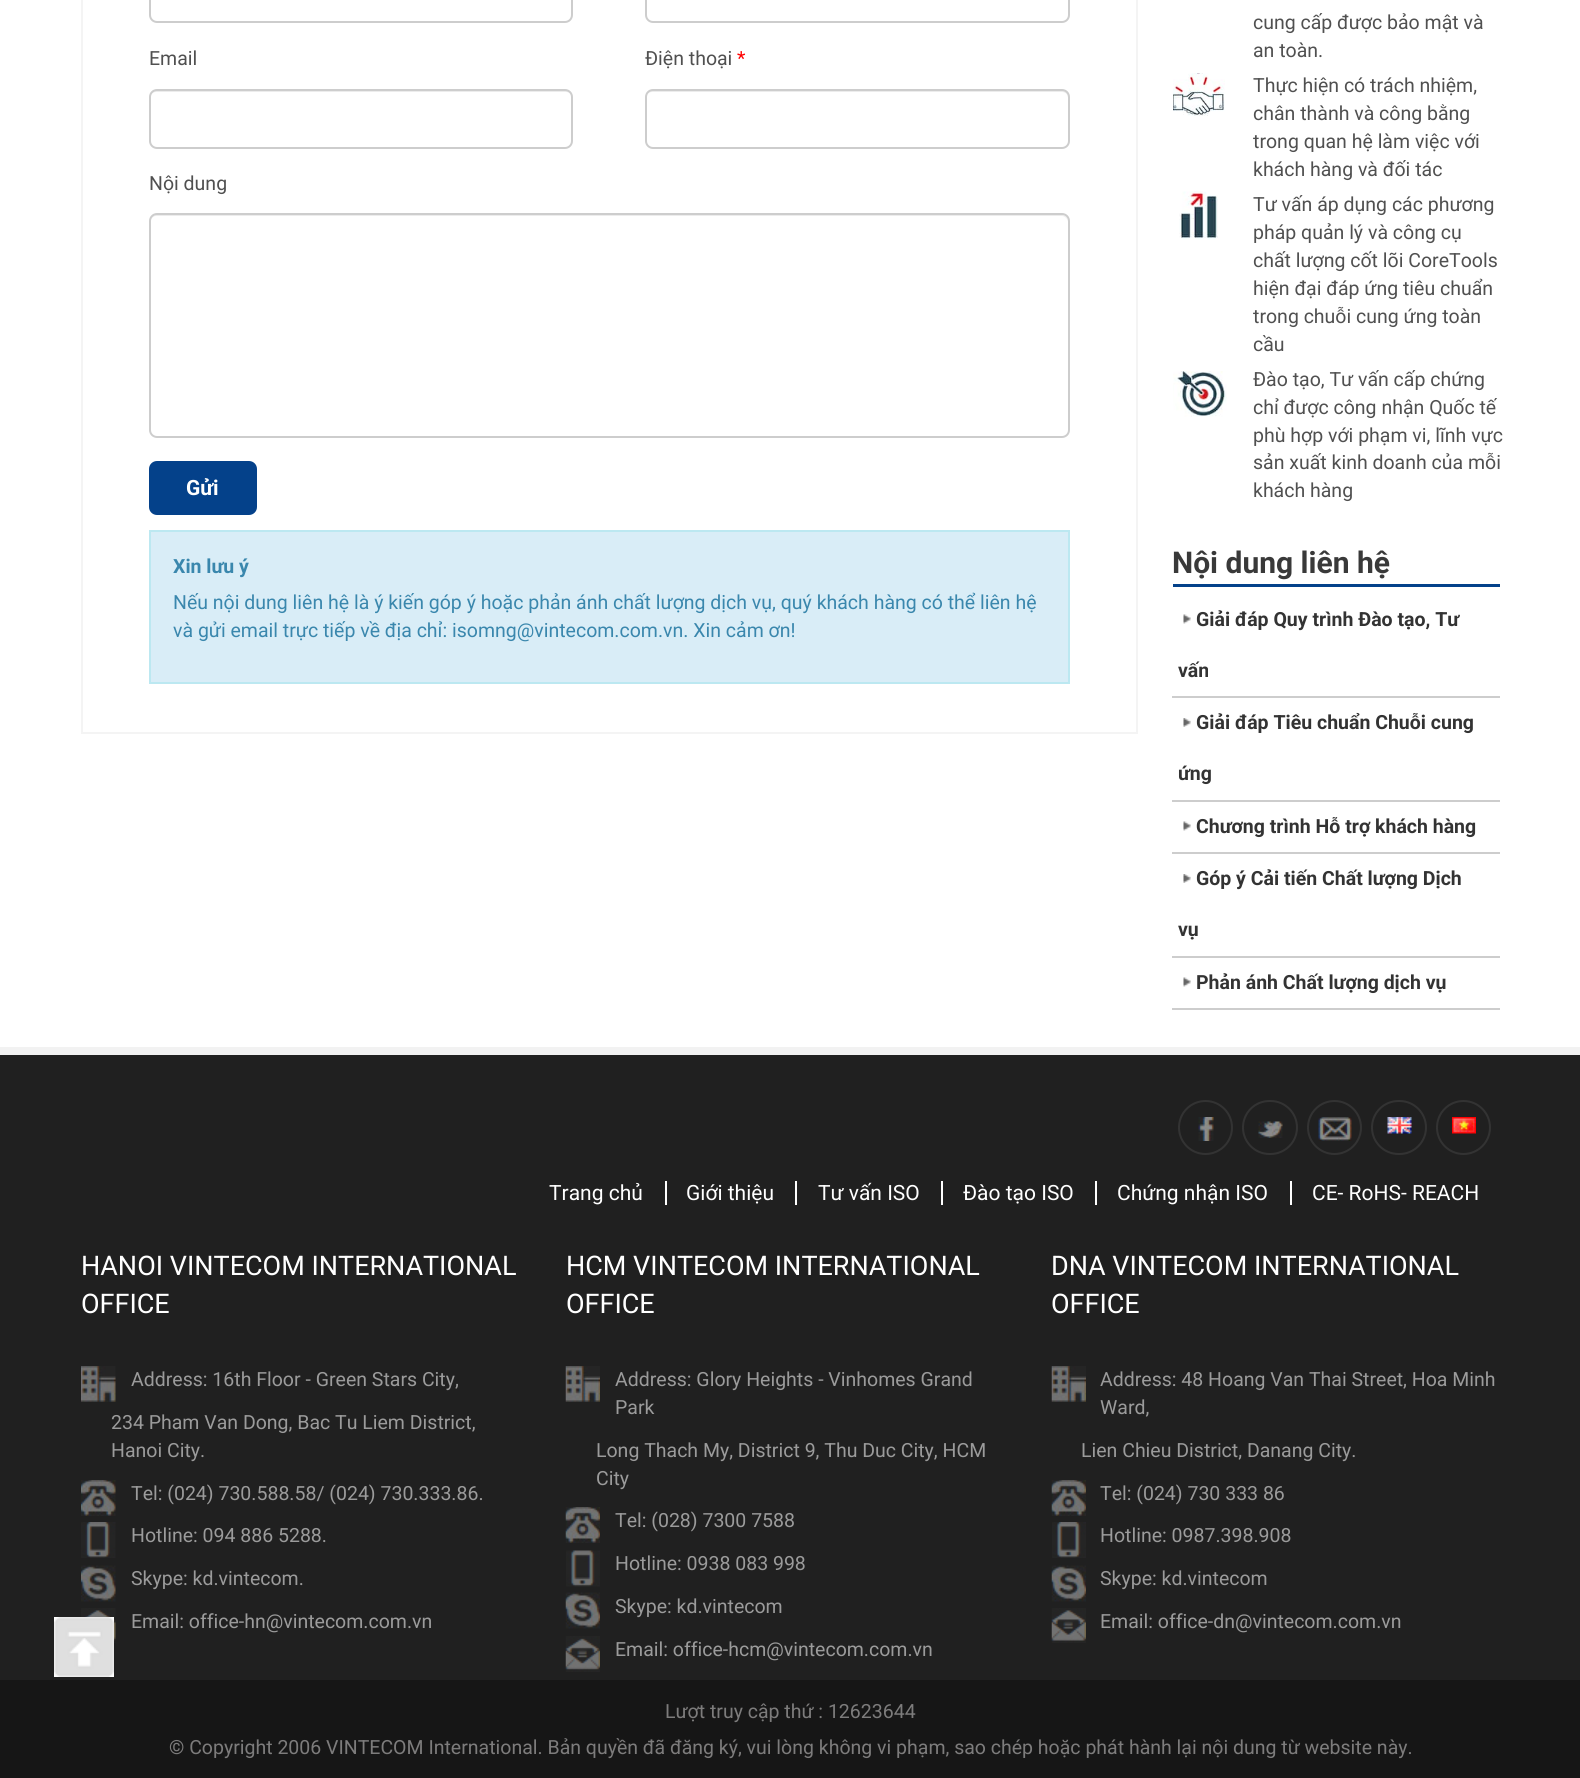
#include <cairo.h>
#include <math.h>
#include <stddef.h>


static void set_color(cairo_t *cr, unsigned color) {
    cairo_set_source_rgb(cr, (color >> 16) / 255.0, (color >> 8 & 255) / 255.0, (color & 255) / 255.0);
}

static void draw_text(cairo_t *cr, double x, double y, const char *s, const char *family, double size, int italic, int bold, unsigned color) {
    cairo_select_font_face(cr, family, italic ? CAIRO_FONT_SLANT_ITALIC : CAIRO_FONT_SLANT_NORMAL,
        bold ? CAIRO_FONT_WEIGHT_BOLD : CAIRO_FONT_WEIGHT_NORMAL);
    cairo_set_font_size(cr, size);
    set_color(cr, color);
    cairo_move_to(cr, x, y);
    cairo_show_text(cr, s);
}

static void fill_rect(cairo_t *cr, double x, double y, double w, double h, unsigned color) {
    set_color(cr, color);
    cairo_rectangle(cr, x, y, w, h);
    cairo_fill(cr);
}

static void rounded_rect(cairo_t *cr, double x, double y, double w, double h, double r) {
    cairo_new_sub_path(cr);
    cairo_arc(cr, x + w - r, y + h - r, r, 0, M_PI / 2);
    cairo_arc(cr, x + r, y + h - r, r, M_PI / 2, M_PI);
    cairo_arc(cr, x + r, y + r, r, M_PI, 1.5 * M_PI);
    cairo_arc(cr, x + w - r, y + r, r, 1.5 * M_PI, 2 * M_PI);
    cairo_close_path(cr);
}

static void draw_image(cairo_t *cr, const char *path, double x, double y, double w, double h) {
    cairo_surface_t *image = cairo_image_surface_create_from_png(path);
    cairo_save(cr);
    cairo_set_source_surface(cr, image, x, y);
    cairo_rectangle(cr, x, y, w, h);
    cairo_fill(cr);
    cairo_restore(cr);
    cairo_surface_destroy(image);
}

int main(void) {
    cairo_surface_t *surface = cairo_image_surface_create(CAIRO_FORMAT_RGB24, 1580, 1778);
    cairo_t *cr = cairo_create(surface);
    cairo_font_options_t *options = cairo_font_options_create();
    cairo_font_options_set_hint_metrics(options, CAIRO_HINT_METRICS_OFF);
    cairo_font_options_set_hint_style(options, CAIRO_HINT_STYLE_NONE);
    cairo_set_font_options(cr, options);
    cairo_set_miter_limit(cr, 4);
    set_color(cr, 0xFFFFFF);
    cairo_paint(cr);
    fill_rect(cr, 0, 1047, 1580, 8, 0xF2F2F2);
    fill_rect(cr, 1136, 0, 2, 734, 0xF4F4F4);
    fill_rect(cr, 81, 732, 1056, 2, 0xF4F4F4);
    fill_rect(cr, 81, 0, 2, 734, 0xF4F4F4);
    rounded_rect(cr, 150, -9, 422, 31, 7);
    set_color(cr, 0xCDCDCD);
    cairo_stroke(cr);
    rounded_rect(cr, 646, -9, 423, 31, 7);
    cairo_stroke(cr);
    draw_text(cr, 149, 65, "Email", "Roboto", 19.5, 0, 0, 0x505050);
    set_color(cr, 0xECECEC);
    cairo_new_path(cr);
    cairo_move_to(cr, 156, 92);
    cairo_line_to(cr, 566, 92);
    cairo_curve_to(cr, 569, 92, 572, 94, 572, 98);
    cairo_line_to(cr, 572, 96);
    cairo_curve_to(cr, 572, 93, 569, 90, 566, 90);
    cairo_line_to(cr, 156, 90);
    cairo_curve_to(cr, 153, 90, 150, 93, 150, 96);
    cairo_line_to(cr, 150, 98);
    cairo_curve_to(cr, 150, 94, 153, 92, 156, 92);
    cairo_close_path(cr);
    cairo_fill(cr);
    rounded_rect(cr, 150, 90, 422, 58, 7);
    set_color(cr, 0xCDCDCD);
    cairo_stroke(cr);
    draw_text(cr, 645, 65, "Điện thoại", "Roboto", 19.5, 0, 0, 0x505050);
    draw_text(cr, 737, 65, "*", "Roboto", 19.5, 0, 0, 0xFF0000);
    set_color(cr, 0xECECEC);
    cairo_new_path(cr);
    cairo_move_to(cr, 652, 92);
    cairo_line_to(cr, 1062, 92);
    cairo_curve_to(cr, 1065, 92, 1068, 94, 1068, 98);
    cairo_line_to(cr, 1068, 96);
    cairo_curve_to(cr, 1068, 93, 1065, 90, 1062, 90);
    cairo_line_to(cr, 653, 90);
    cairo_curve_to(cr, 650, 90, 648, 92, 647, 94);
    cairo_curve_to(cr, 648, 93, 650, 92, 652, 92);
    cairo_close_path(cr);
    cairo_fill(cr);
    rounded_rect(cr, 646, 90, 423, 58, 7);
    set_color(cr, 0xCDCDCD);
    cairo_stroke(cr);
    draw_text(cr, 149, 190, "Nội dung", "Roboto", 19.5, 0, 0, 0x505050);
    set_color(cr, 0xECECEC);
    cairo_new_path(cr);
    cairo_move_to(cr, 156, 216);
    cairo_line_to(cr, 1062, 216);
    cairo_curve_to(cr, 1065, 216, 1068, 219, 1068, 222);
    cairo_line_to(cr, 1068, 221);
    cairo_curve_to(cr, 1068, 218, 1065, 215, 1062, 215);
    cairo_line_to(cr, 156, 215);
    cairo_curve_to(cr, 153, 215, 150, 218, 150, 221);
    cairo_line_to(cr, 150, 222);
    cairo_curve_to(cr, 150, 219, 153, 216, 156, 216);
    cairo_close_path(cr);
    cairo_fill(cr);
    rounded_rect(cr, 150, 214, 919, 223, 7);
    set_color(cr, 0xCDCDCD);
    cairo_stroke(cr);
    set_color(cr, 0x04418A);
    rounded_rect(cr, 149, 461, 108, 54, 8);
    cairo_fill(cr);
    draw_text(cr, 186, 495, "Gửi", "Roboto", 21, 0, 1, 0xFFFFFF);
    set_color(cr, 0xD9EDF7);
    cairo_rectangle(cr, 150, 531, 919, 152);
    cairo_fill_preserve(cr);
    set_color(cr, 0xBCE8F1);
    cairo_stroke(cr);
    draw_text(cr, 173, 573, "Xin lưu ý", "Roboto", 19.5, 0, 1, 0x3A87AD);
    draw_text(cr, 173, 609, "Nếu nội dung liên hệ là ý kiến góp ý hoặc phản ánh chất lượng dịch vụ, quý khách hàng có thể liên hệ", "Roboto", 19.5, 0, 0, 0x3A87AD);
    draw_text(cr, 173, 637, "và gửi email trực tiếp về địa chỉ: isomng@vintecom.com.vn. Xin cảm ơn!", "Roboto", 19.5, 0, 0, 0x3A87AD);
    draw_text(cr, 1253, 29, "cung cấp được bảo mật và", "Roboto", 19.5, 0, 0, 0x505050);
    draw_text(cr, 1253, 57, "an toàn.", "Roboto", 19.5, 0, 0, 0x505050);
    draw_image(cr, "assets/img1.png", 1173, 73, 52, 43);
    draw_text(cr, 1253, 92, "Thực hiện có trách nhiệm,", "Roboto", 19.5, 0, 0, 0x505050);
    draw_text(cr, 1253, 120, "chân thành và công bằng", "Roboto", 19.5, 0, 0, 0x505050);
    draw_text(cr, 1253, 148, "trong quan hệ làm việc với", "Roboto", 19.5, 0, 0, 0x505050);
    draw_text(cr, 1253, 176, "khách hàng và đối tác", "Roboto", 19.5, 0, 0, 0x505050);
    draw_image(cr, "assets/img2.png", 1179, 191, 39, 49);
    draw_text(cr, 1253, 211, "Tư vấn áp dụng các phương", "Roboto", 19.5, 0, 0, 0x505050);
    draw_text(cr, 1253, 239, "pháp quản lý và công cụ", "Roboto", 19.5, 0, 0, 0x505050);
    draw_text(cr, 1253, 267, "chất lượng cốt lõi CoreTools", "Roboto", 19.5, 0, 0, 0x505050);
    draw_text(cr, 1253, 295, "hiện đại đáp ứng tiêu chuẩn", "Roboto", 19.5, 0, 0, 0x505050);
    draw_text(cr, 1253, 323, "trong chuỗi cung ứng toàn", "Roboto", 19.5, 0, 0, 0x505050);
    draw_text(cr, 1253, 351, "cầu", "Roboto", 19.5, 0, 0, 0x505050);
    draw_image(cr, "assets/img3.png", 1173, 371, 54, 46);
    draw_text(cr, 1253, 386, "Đào tạo, Tư vấn cấp chứng", "Roboto", 19.5, 0, 0, 0x505050);
    draw_text(cr, 1253, 414, "chỉ được công nhận Quốc tế", "Roboto", 19.5, 0, 0, 0x505050);
    draw_text(cr, 1253, 442, "phù hợp với phạm vi, lĩnh vực", "Roboto", 19.5, 0, 0, 0x505050);
    draw_text(cr, 1253, 469, "sản xuất kinh doanh của mỗi", "Roboto", 19.5, 0, 0, 0x505050);
    draw_text(cr, 1253, 497, "khách hàng", "Roboto", 19.5, 0, 0, 0x505050);
    draw_text(cr, 1172, 573, "Nội dung liên hệ", "Roboto", 30, 0, 1, 0x393939);
    fill_rect(cr, 1173, 584, 327, 3, 0x04418A);
    draw_image(cr, "assets/img4.png", 1183, 614, 8, 10);
    fill_rect(cr, 1172, 696, 328, 2, 0xCDCDCD);
    draw_text(cr, 1196, 626, "Giải đáp Quy trình Đào tạo, Tư", "Roboto", 19.5, 0, 1, 0x333333);
    draw_text(cr, 1178, 677, "vấn", "Roboto", 19.5, 0, 1, 0x333333);
    draw_image(cr, "assets/img5.png", 1183, 718, 8, 9);
    fill_rect(cr, 1172, 800, 328, 2, 0xCDCDCD);
    draw_text(cr, 1196, 729, "Giải đáp Tiêu chuẩn Chuỗi cung", "Roboto", 19.5, 0, 1, 0x333333);
    draw_text(cr, 1178, 780, "ứng", "Roboto", 19.5, 0, 1, 0x333333);
    draw_image(cr, "assets/img4.png", 1183, 821, 8, 10);
    fill_rect(cr, 1172, 852, 328, 2, 0xCDCDCD);
    draw_text(cr, 1196, 833, "Chương trình Hỗ trợ khách hàng", "Roboto", 19.5, 0, 1, 0x333333);
    draw_image(cr, "assets/img5.png", 1183, 874, 8, 9);
    fill_rect(cr, 1172, 956, 328, 2, 0xCDCDCD);
    draw_text(cr, 1196, 885, "Góp ý Cải tiến Chất lượng Dịch", "Roboto", 19.5, 0, 1, 0x333333);
    draw_text(cr, 1178, 936, "vụ", "Roboto", 19.5, 0, 1, 0x333333);
    draw_image(cr, "assets/img4.png", 1183, 977, 8, 10);
    fill_rect(cr, 1172, 1008, 328, 2, 0xCDCDCD);
    draw_text(cr, 1196, 989, "Phản ánh Chất lượng dịch vụ", "Roboto", 19.5, 0, 1, 0x333333);
    fill_rect(cr, 0, 1055, 1580, 625, 0x202020);
    cairo_new_path(cr);
    cairo_arc(cr, 1205.5, 1127.5, 26.5, 0, 2 * M_PI);
    set_color(cr, 0x333333);
    cairo_stroke(cr);
    draw_image(cr, "assets/img6.png", 1198, 1117, 16, 24);
    rounded_rect(cr, 1243, 1101, 54, 53, 26.5);
    cairo_stroke(cr);
    draw_image(cr, "assets/img7.png", 1258, 1121, 25, 17);
    cairo_arc(cr, 1334.5, 1127.5, 26.5, 0, 2 * M_PI);
    cairo_stroke(cr);
    draw_image(cr, "assets/img8.png", 1318, 1117, 34, 24);
    rounded_rect(cr, 1372, 1101, 54, 53, 26.5);
    cairo_stroke(cr);
    draw_image(cr, "assets/img9.png", 1387, 1117, 25, 17);
    cairo_arc(cr, 1463.5, 1127.5, 26.5, 0, 2 * M_PI);
    cairo_stroke(cr);
    draw_image(cr, "assets/img10.png", 1452, 1117, 24, 17);
    draw_text(cr, 549, 1200, "Trang chủ", "Roboto", 21, 0, 0, 0xFFFFFF);
    draw_text(cr, 686, 1200, "Giới thiệu", "Roboto", 21, 0, 0, 0xFFFFFF);
    fill_rect(cr, 665, 1181, 2, 24, 0xFFFFFF);
    draw_text(cr, 818, 1200, "Tư vấn ISO", "Roboto", 21, 0, 0, 0xFFFFFF);
    fill_rect(cr, 795, 1181, 2, 24, 0xFFFFFF);
    draw_text(cr, 963, 1200, "Đào tạo ISO", "Roboto", 21, 0, 0, 0xFFFFFF);
    fill_rect(cr, 941, 1181, 2, 24, 0xFFFFFF);
    draw_text(cr, 1117, 1200, "Chứng nhận ISO", "Roboto", 21, 0, 0, 0xFFFFFF);
    fill_rect(cr, 1095, 1181, 2, 24, 0xFFFFFF);
    draw_text(cr, 1312, 1200, "CE- RoHS- REACH", "Roboto", 21, 0, 0, 0xFFFFFF);
    fill_rect(cr, 1290, 1181, 2, 24, 0xFFFFFF);
    draw_text(cr, 81, 1275, "HANOI VINTECOM INTERNATIONAL", "Roboto", 27, 0, 0, 0xFFFFFF);
    draw_text(cr, 81, 1313, "OFFICE", "Roboto", 27, 0, 0, 0xFFFFFF);
    draw_image(cr, "assets/img11.png", 81, 1366, 35, 36);
    draw_text(cr, 131, 1386, "Address: 16th Floor - Green Stars City,", "Roboto", 19.5, 0, 0, 0x9B9B9B);
    draw_text(cr, 111, 1429, "234 Pham Van Dong, Bac Tu Liem District,", "Roboto", 19.5, 0, 0, 0x9B9B9B);
    draw_text(cr, 111, 1457, "Hanoi City.", "Roboto", 19.5, 0, 0, 0x9B9B9B);
    draw_image(cr, "assets/img12.png", 81, 1480, 35, 36);
    draw_text(cr, 131, 1500, "Tel: (024) 730.588.58/ (024) 730.333.86.", "Roboto", 19.5, 0, 0, 0x9B9B9B);
    draw_image(cr, "assets/img13.png", 81, 1522, 35, 36);
    draw_text(cr, 131, 1542, "Hotline: 094 886 5288.", "Roboto", 19.5, 0, 0, 0x9B9B9B);
    draw_image(cr, "assets/img14.png", 81, 1565, 35, 37);
    draw_text(cr, 131, 1585, "Skype: kd.vintecom.", "Roboto", 19.5, 0, 0, 0x9B9B9B);
    draw_image(cr, "assets/img15.png", 81, 1608, 35, 35);
    draw_text(cr, 131, 1628, "Email: office-hn@vintecom.com.vn", "Roboto", 19.5, 0, 0, 0x9B9B9B);
    draw_text(cr, 566, 1275, "HCM VINTECOM INTERNATIONAL", "Roboto", 27, 0, 0, 0xFFFFFF);
    draw_text(cr, 566, 1313, "OFFICE", "Roboto", 27, 0, 0, 0xFFFFFF);
    draw_image(cr, "assets/img16.png", 565, 1366, 35, 36);
    draw_text(cr, 615, 1386, "Address: Glory Heights - Vinhomes Grand", "Roboto", 19.5, 0, 0, 0x9B9B9B);
    draw_text(cr, 615, 1414, "Park", "Roboto", 19.5, 0, 0, 0x9B9B9B);
    draw_text(cr, 596, 1457, "Long Thach My, District 9, Thu Duc City, HCM", "Roboto", 19.5, 0, 0, 0x9B9B9B);
    draw_text(cr, 596, 1485, "City", "Roboto", 19.5, 0, 0, 0x9B9B9B);
    draw_image(cr, "assets/img17.png", 565, 1507, 35, 36);
    draw_text(cr, 615, 1527, "Tel: (028) 7300 7588", "Roboto", 19.5, 0, 0, 0x9B9B9B);
    draw_image(cr, "assets/img18.png", 566, 1550, 34, 37);
    draw_text(cr, 615, 1570, "Hotline: 0938 083 998", "Roboto", 19.5, 0, 0, 0x9B9B9B);
    draw_image(cr, "assets/img19.png", 565, 1592, 35, 37);
    draw_text(cr, 615, 1613, "Skype: kd.vintecom", "Roboto", 19.5, 0, 0, 0x9B9B9B);
    draw_image(cr, "assets/img20.png", 565, 1636, 35, 36);
    draw_text(cr, 615, 1656, "Email: office-hcm@vintecom.com.vn", "Roboto", 19.5, 0, 0, 0x9B9B9B);
    draw_text(cr, 1051, 1275, "DNA VINTECOM INTERNATIONAL", "Roboto", 27, 0, 0, 0xFFFFFF);
    draw_text(cr, 1051, 1313, "OFFICE", "Roboto", 27, 0, 0, 0xFFFFFF);
    draw_image(cr, "assets/img21.png", 1051, 1366, 35, 36);
    draw_text(cr, 1100, 1386, "Address: 48 Hoang Van Thai Street, Hoa Minh", "Roboto", 19.5, 0, 0, 0x9B9B9B);
    draw_text(cr, 1100, 1414, "Ward,", "Roboto", 19.5, 0, 0, 0x9B9B9B);
    draw_text(cr, 1081, 1457, "Lien Chieu District, Danang City.", "Roboto", 19.5, 0, 0, 0x9B9B9B);
    draw_image(cr, "assets/img22.png", 1051, 1480, 35, 36);
    draw_text(cr, 1100, 1500, "Tel: (024) 730 333 86", "Roboto", 19.5, 0, 0, 0x9B9B9B);
    draw_image(cr, "assets/img23.png", 1052, 1522, 34, 36);
    draw_text(cr, 1100, 1542, "Hotline: 0987.398.908", "Roboto", 19.5, 0, 0, 0x9B9B9B);
    draw_image(cr, "assets/img24.png", 1051, 1565, 35, 37);
    draw_text(cr, 1100, 1585, "Skype: kd.vintecom", "Roboto", 19.5, 0, 0, 0x9B9B9B);
    draw_image(cr, "assets/img25.png", 1051, 1608, 35, 35);
    draw_text(cr, 1100, 1628, "Email: office-dn@vintecom.com.vn", "Roboto", 19.5, 0, 0, 0x9B9B9B);
    fill_rect(cr, 0, 1680, 1580, 98, 0x161616);
    draw_text(cr, 665, 1718, "Lượt truy cập thứ : 12623644", "Roboto", 19.5, 0, 0, 0x7D7C7C);
    draw_text(cr, 169, 1754, "© Copyright 2006 VINTECOM International. Bản quyền đã đăng ký, vui lòng không vi phạm, sao chép hoặc phát hành lại nội dung từ website này.", "Roboto", 19.5, 0, 0, 0x7D7C7C);
    draw_image(cr, "assets/img26.png", 54, 1617, 60, 60);
    cairo_surface_write_to_png(surface, "output.png");
    cairo_font_options_destroy(options);
    cairo_destroy(cr);
    cairo_surface_destroy(surface);
    return 0;
}
